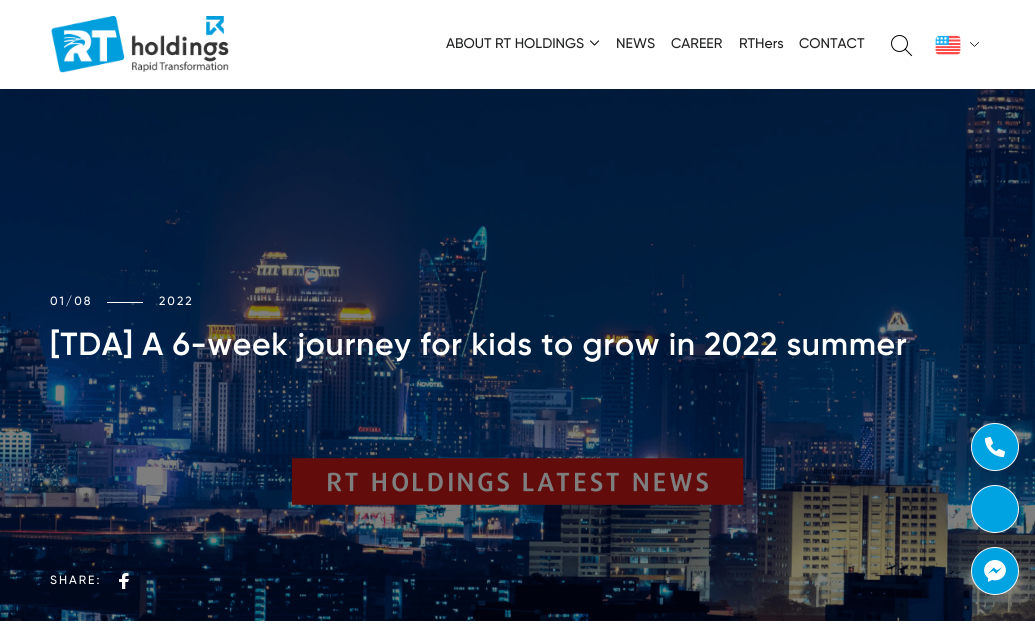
#include <cairo.h>
#include <math.h>
#include <stddef.h>


static void set_color(cairo_t *cr, unsigned color) {
    cairo_set_source_rgb(cr, (color >> 16) / 255.0, (color >> 8 & 255) / 255.0, (color & 255) / 255.0);
}

static void draw_text(cairo_t *cr, double x, double y, const char *s, const char *family, double size, int italic, int bold, unsigned color) {
    cairo_select_font_face(cr, family, italic ? CAIRO_FONT_SLANT_ITALIC : CAIRO_FONT_SLANT_NORMAL,
        bold ? CAIRO_FONT_WEIGHT_BOLD : CAIRO_FONT_WEIGHT_NORMAL);
    cairo_set_font_size(cr, size);
    set_color(cr, color);
    cairo_move_to(cr, x, y);
    cairo_show_text(cr, s);
}

static void draw_spaced(cairo_t *cr, double x, double y, const char *s, double letter, double word) {
    cairo_move_to(cr, x, y);
    while (*s) {
        char ch[5] = {0};
        int n = 0;
        do ch[n++] = *s++; while ((*s & 0xC0) == 0x80);
        cairo_show_text(cr, ch);
        cairo_rel_move_to(cr, letter + word * (*ch == ' '), 0);
    }
}

static void fill_rect(cairo_t *cr, double x, double y, double w, double h, unsigned color) {
    set_color(cr, color);
    cairo_rectangle(cr, x, y, w, h);
    cairo_fill(cr);
}

static void draw_image(cairo_t *cr, const char *path, double x, double y, double w, double h) {
    cairo_surface_t *image = cairo_image_surface_create_from_png(path);
    cairo_save(cr);
    cairo_set_source_surface(cr, image, x, y);
    cairo_rectangle(cr, x, y, w, h);
    cairo_fill(cr);
    cairo_restore(cr);
    cairo_surface_destroy(image);
}

int main(void) {
    cairo_surface_t *surface = cairo_image_surface_create(CAIRO_FORMAT_RGB24, 1035, 643);
    cairo_t *cr = cairo_create(surface);
    cairo_font_options_t *options = cairo_font_options_create();
    cairo_font_options_set_hint_metrics(options, CAIRO_HINT_METRICS_OFF);
    cairo_font_options_set_hint_style(options, CAIRO_HINT_STYLE_NONE);
    cairo_set_font_options(cr, options);
    cairo_set_miter_limit(cr, 4);
    set_color(cr, 0xFFFFFF);
    cairo_paint(cr);
    draw_image(cr, "assets/img5.png", 0, 89, 1035, 532);
    cairo_set_source_rgba(cr, 0.125, 0.129, 0.129, 0.1);
    cairo_rectangle(cr, 0, 89, 1035, 1);
    cairo_fill(cr);
    draw_image(cr, "assets/img1.png", 51, 16, 178, 57);
    draw_text(cr, 446, 48, "ABOUT RT HOLDINGS", "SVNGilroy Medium", 14, 0, 0, 0x202121);
    cairo_new_path(cr);
    cairo_move_to(cr, 598.5, 41);
    cairo_line_to(cr, 594.5, 45);
    cairo_line_to(cr, 590.5, 41);
    set_color(cr, 0x000000);
    cairo_set_line_width(cr, 1);
    cairo_set_line_cap(cr, CAIRO_LINE_CAP_SQUARE);
    cairo_stroke(cr);
    draw_text(cr, 616, 48, "NEWS", "SVNGilroy Medium", 14, 0, 0, 0x202121);
    draw_text(cr, 671, 48, "CAREER", "SVNGilroy Medium", 14, 0, 0, 0x202121);
    draw_text(cr, 739, 48, "RTHers", "SVNGilroy Medium", 14, 0, 0, 0x202121);
    draw_text(cr, 799, 48, "CONTACT", "SVNGilroy Medium", 14, 0, 0, 0x202121);
    draw_image(cr, "assets/img2.png", 891, 35, 22, 22);
    draw_image(cr, "assets/img3.png", 935, 35, 26, 20);
    draw_image(cr, "assets/img4.png", 970, 42, 9, 5);
    cairo_set_font_size(cr, 12);
    set_color(cr, 0xFFFFFF);
    draw_spaced(cr, 50, 305, "01/08", 2, 0);
    fill_rect(cr, 107, 302, 36, 1, 0xFFFFFF);
    draw_spaced(cr, 159, 305, "2022", 2, 0);
    cairo_select_font_face(cr, "SVNGilroy SemiBold", CAIRO_FONT_SLANT_NORMAL, CAIRO_FONT_WEIGHT_NORMAL);
    cairo_set_font_size(cr, 32);
    draw_spaced(cr, 50, 355, "[TDA] A 6-week journey for kids to grow in 2022 summer", 0.65, 0);
    cairo_select_font_face(cr, "SVNGilroy Medium", CAIRO_FONT_SLANT_NORMAL, CAIRO_FONT_WEIGHT_NORMAL);
    cairo_set_font_size(cr, 12);
    draw_spaced(cr, 50, 584, "SHARE:", 2, 0);
    draw_image(cr, "assets/img6.png", 119, 573, 10, 16);
    set_color(cr, 0x00A3E1);
    cairo_arc(cr, 995, 447, 23.5, 0, 2 * M_PI);
    cairo_fill_preserve(cr);
    set_color(cr, 0xF5F5F5);
    cairo_set_line_cap(cr, CAIRO_LINE_CAP_BUTT);
    cairo_stroke(cr);
    draw_image(cr, "assets/img7.png", 984, 437, 21, 21);
    set_color(cr, 0x00A3E1);
    cairo_arc(cr, 995, 509, 23.5, 0, 2 * M_PI);
    cairo_fill_preserve(cr);
    set_color(cr, 0xF5F5F5);
    cairo_stroke(cr);
    set_color(cr, 0x00A3E1);
    cairo_arc(cr, 995, 571, 23.5, 0, 2 * M_PI);
    cairo_fill_preserve(cr);
    set_color(cr, 0xF5F5F5);
    cairo_stroke(cr);
    draw_image(cr, "assets/img8.png", 984, 560, 22, 22);
    cairo_surface_write_to_png(surface, "output.png");
    cairo_font_options_destroy(options);
    cairo_destroy(cr);
    cairo_surface_destroy(surface);
    return 0;
}
